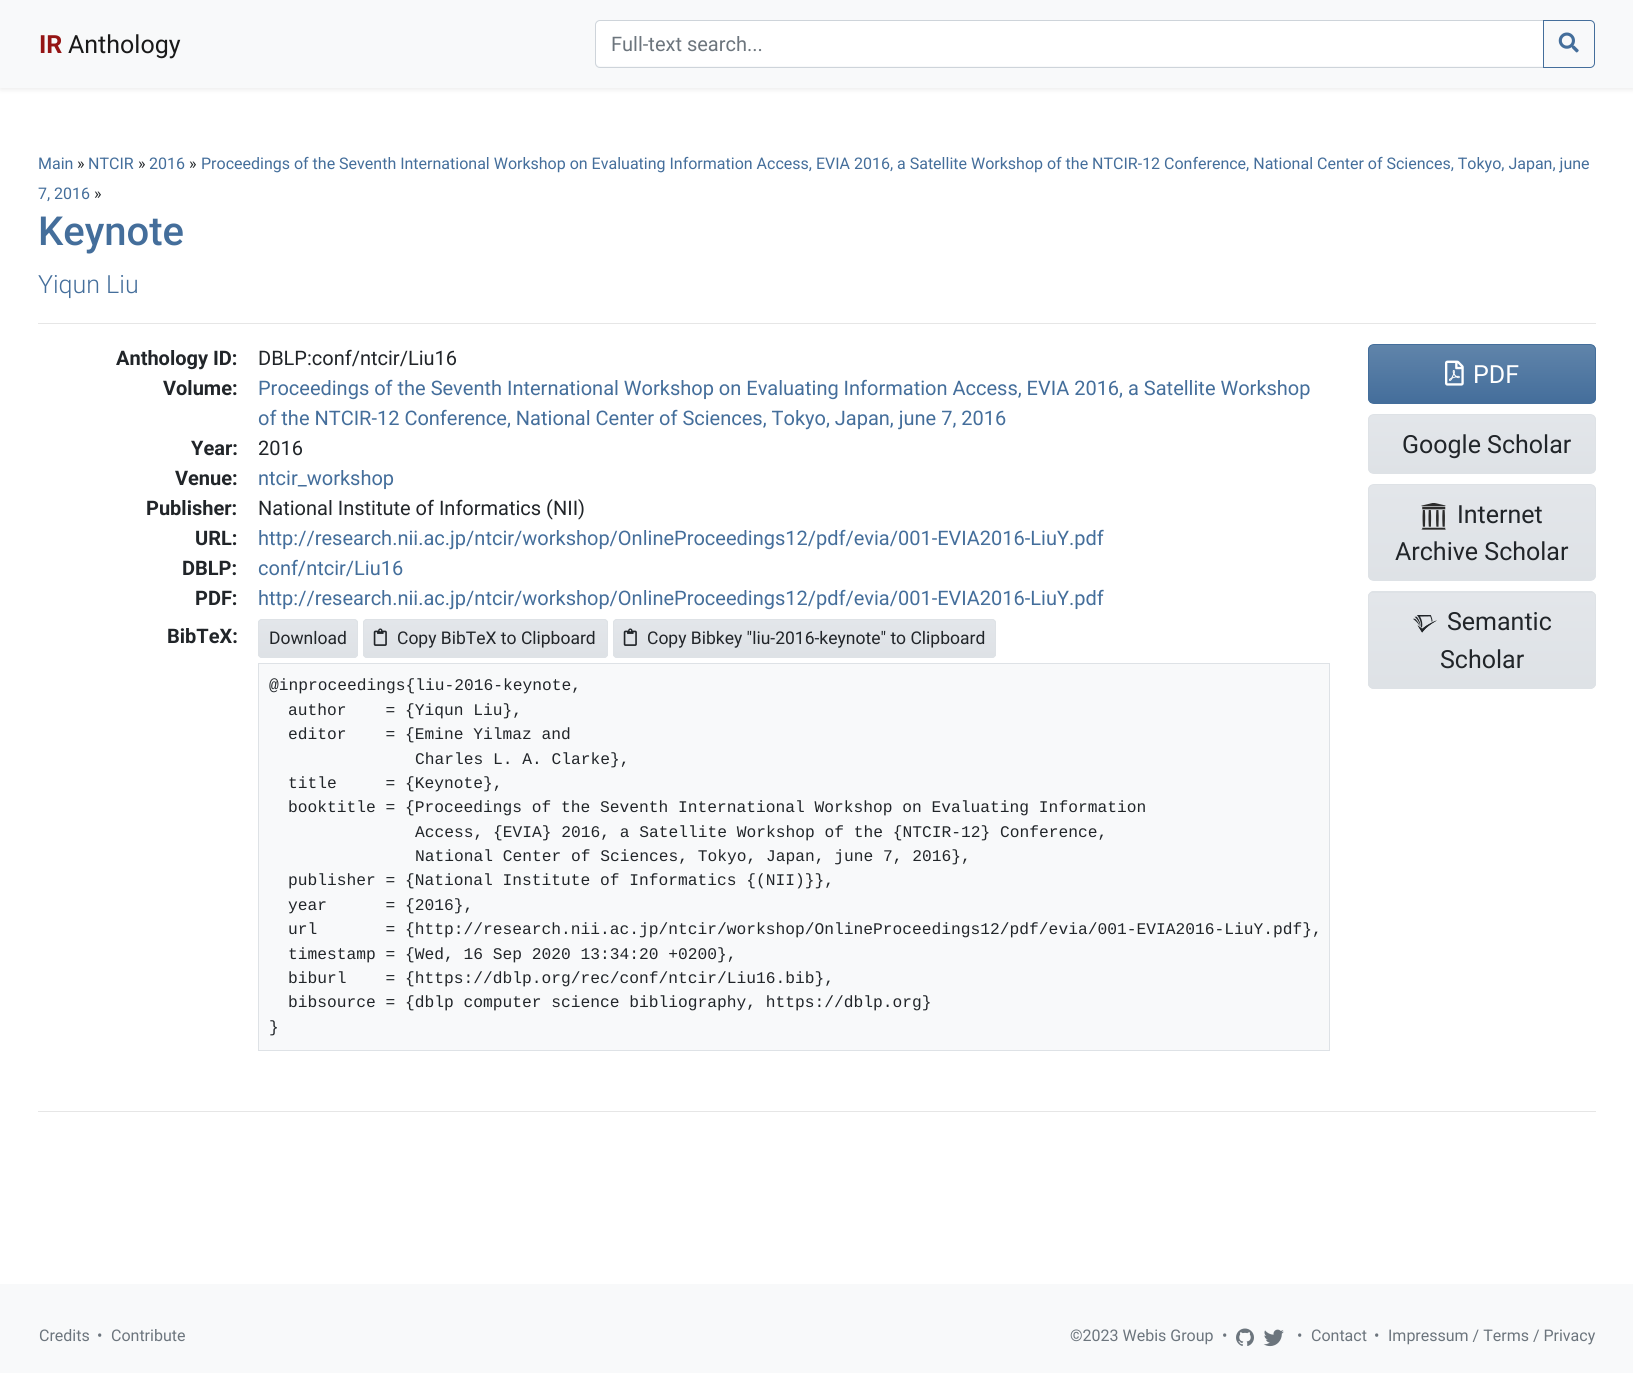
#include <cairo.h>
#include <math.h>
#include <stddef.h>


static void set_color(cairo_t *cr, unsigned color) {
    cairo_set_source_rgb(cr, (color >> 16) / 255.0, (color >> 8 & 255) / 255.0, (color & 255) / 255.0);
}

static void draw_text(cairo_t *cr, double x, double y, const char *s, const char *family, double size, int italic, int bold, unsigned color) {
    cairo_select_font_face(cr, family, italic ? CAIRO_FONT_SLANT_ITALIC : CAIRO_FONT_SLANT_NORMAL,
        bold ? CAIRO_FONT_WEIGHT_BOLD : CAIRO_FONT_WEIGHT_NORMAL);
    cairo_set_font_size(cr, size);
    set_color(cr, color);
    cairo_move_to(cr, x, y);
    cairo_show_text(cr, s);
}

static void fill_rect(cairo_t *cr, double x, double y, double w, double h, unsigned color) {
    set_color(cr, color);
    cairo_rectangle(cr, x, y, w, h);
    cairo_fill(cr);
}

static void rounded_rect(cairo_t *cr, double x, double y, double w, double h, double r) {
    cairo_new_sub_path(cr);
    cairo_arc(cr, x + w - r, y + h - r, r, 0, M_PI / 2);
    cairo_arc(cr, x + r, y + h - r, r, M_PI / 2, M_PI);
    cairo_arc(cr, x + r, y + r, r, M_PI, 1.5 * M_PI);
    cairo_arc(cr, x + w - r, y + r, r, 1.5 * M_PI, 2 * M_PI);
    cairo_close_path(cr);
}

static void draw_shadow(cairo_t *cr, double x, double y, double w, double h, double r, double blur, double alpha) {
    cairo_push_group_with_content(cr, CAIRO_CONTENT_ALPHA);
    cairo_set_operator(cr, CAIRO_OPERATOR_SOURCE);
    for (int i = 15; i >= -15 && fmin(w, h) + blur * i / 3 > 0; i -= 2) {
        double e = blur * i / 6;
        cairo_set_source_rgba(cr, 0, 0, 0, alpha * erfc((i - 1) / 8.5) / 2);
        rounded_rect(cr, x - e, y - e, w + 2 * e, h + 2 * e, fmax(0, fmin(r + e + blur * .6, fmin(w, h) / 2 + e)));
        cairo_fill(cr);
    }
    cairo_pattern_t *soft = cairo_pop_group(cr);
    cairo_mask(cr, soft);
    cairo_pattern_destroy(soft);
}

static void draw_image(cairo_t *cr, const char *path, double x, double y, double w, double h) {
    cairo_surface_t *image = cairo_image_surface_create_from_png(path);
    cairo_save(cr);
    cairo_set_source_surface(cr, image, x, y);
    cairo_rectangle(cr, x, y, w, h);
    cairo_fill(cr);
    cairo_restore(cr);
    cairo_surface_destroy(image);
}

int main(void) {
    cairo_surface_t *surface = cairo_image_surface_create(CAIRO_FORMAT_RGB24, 1633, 1373);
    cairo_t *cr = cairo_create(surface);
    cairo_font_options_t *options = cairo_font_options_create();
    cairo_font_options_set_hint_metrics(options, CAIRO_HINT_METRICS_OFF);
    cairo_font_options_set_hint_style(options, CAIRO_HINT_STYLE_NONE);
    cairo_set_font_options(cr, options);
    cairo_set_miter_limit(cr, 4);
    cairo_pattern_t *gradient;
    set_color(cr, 0xFFFFFF);
    cairo_paint(cr);
    set_color(cr, 0x000000);
    draw_shadow(cr, 0, 3, 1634, 87, 0, 2.5, 0.07);
    fill_rect(cr, 0, 0, 1633, 88, 0xF8F9FA);
    draw_text(cr, 39, 53, "IR", "Roboto", 25, 0, 1, 0x951515);
    draw_text(cr, 68, 53, "Anthology", "Roboto", 25, 0, 0, 0x191919);
    set_color(cr, 0xFFFFFF);
    cairo_new_path(cr);
    cairo_move_to(cr, 600, 21);
    cairo_line_to(cr, 1543, 21);
    cairo_line_to(cr, 1543, 66);
    cairo_line_to(cr, 600, 66);
    cairo_curve_to(cr, 598, 66, 596, 64, 596, 62);
    cairo_line_to(cr, 596, 25);
    cairo_curve_to(cr, 596, 23, 598, 21, 600, 21);
    cairo_close_path(cr);
    cairo_fill(cr);
    cairo_new_path(cr);
    cairo_move_to(cr, 600, 20.5);
    cairo_line_to(cr, 1543.5, 20.5);
    cairo_line_to(cr, 1543.5, 67.5);
    cairo_line_to(cr, 600, 67.5);
    cairo_curve_to(cr, 597.5, 67.5, 595.5, 65.5, 595.5, 63);
    cairo_line_to(cr, 595.5, 25);
    cairo_curve_to(cr, 595.5, 22.5, 597.5, 20.5, 600, 20.5);
    cairo_close_path(cr);
    set_color(cr, 0xCED4DA);
    cairo_set_line_width(cr, 1);
    cairo_stroke(cr);
    draw_text(cr, 611, 51, "Full-text search...", "Roboto", 20, 0, 0, 0x6C757D);
    cairo_new_path(cr);
    cairo_move_to(cr, 1543.5, 20.5);
    cairo_line_to(cr, 1590, 20.5);
    cairo_curve_to(cr, 1592.5, 20.5, 1594.5, 22.5, 1594.5, 25);
    cairo_line_to(cr, 1594.5, 63);
    cairo_curve_to(cr, 1594.5, 65.5, 1592.5, 67.5, 1590, 67.5);
    cairo_line_to(cr, 1543.5, 67.5);
    cairo_close_path(cr);
    set_color(cr, 0x446E9B);
    cairo_stroke(cr);
    draw_image(cr, "assets/img1.png", 1558, 32, 21, 21);
    draw_text(cr, 38, 169, "Main", "Roboto", 16, 0, 0, 0x446E9B);
    draw_text(cr, 77, 169, "»", "Roboto", 16, 0, 0, 0x212529);
    draw_text(cr, 88, 169, "NTCIR", "Roboto", 16, 0, 0, 0x446E9B);
    draw_text(cr, 138, 169, "»", "Roboto", 16, 0, 0, 0x212529);
    draw_text(cr, 149, 169, "2016", "Roboto", 16, 0, 0, 0x446E9B);
    draw_text(cr, 189, 169, "»", "Roboto", 16, 0, 0, 0x212529);
    draw_text(cr, 201, 169, "Proceedings of the Seventh International Workshop on Evaluating Information Access, EVIA 2016, a Satellite Workshop of the NTCIR-12 Conference, National Center of Sciences, Tokyo, Japan, june", "Roboto", 16, 0, 0, 0x446E9B);
    draw_text(cr, 38, 199, "7, 2016", "Roboto", 16, 0, 0, 0x446E9B);
    draw_text(cr, 94, 199, "»", "Roboto", 16, 0, 0, 0x212529);
    draw_text(cr, 38, 245, "Keynote", "Roboto Medium", 40, 0, 0, 0x446E9B);
    draw_text(cr, 38, 293, "Yiqun Liu", "Roboto Light", 25, 0, 0, 0x446E9B);
    fill_rect(cr, 38, 323, 1558, 1, 0xE6E6E6);
    draw_text(cr, 116, 365, "Anthology ID:", "Roboto", 20, 0, 1, 0x212529);
    draw_text(cr, 258, 365, "DBLP:conf/ntcir/Liu16", "Roboto", 20, 0, 0, 0x212529);
    draw_text(cr, 163, 395, "Volume:", "Roboto", 20, 0, 1, 0x212529);
    draw_text(cr, 258, 395, "Proceedings of the Seventh International Workshop on Evaluating Information Access, EVIA 2016, a Satellite Workshop", "Roboto", 20, 0, 0, 0x446E9B);
    draw_text(cr, 258, 425, "of the NTCIR-12 Conference, National Center of Sciences, Tokyo, Japan, june 7, 2016", "Roboto", 20, 0, 0, 0x446E9B);
    draw_text(cr, 191, 455, "Year:", "Roboto", 20, 0, 1, 0x212529);
    draw_text(cr, 258, 455, "2016", "Roboto", 20, 0, 0, 0x212529);
    draw_text(cr, 175, 485, "Venue:", "Roboto", 20, 0, 1, 0x212529);
    draw_text(cr, 258, 485, "ntcir_workshop", "Roboto", 20, 0, 0, 0x446E9B);
    draw_text(cr, 146, 515, "Publisher:", "Roboto", 20, 0, 1, 0x212529);
    draw_text(cr, 258, 515, "National Institute of Informatics (NII)", "Roboto", 20, 0, 0, 0x212529);
    draw_text(cr, 195, 545, "URL:", "Roboto", 20, 0, 1, 0x212529);
    draw_text(cr, 258, 545, "http://research.nii.ac.jp/ntcir/workshop/OnlineProceedings12/pdf/evia/001-EVIA2016-LiuY.pdf", "Roboto", 20, 0, 0, 0x446E9B);
    draw_text(cr, 182, 575, "DBLP:", "Roboto", 20, 0, 1, 0x212529);
    draw_text(cr, 258, 575, "conf/ntcir/Liu16", "Roboto", 20, 0, 0, 0x446E9B);
    draw_text(cr, 195, 605, "PDF:", "Roboto", 20, 0, 1, 0x212529);
    draw_text(cr, 258, 605, "http://research.nii.ac.jp/ntcir/workshop/OnlineProceedings12/pdf/evia/001-EVIA2016-LiuY.pdf", "Roboto", 20, 0, 0, 0x446E9B);
    draw_text(cr, 167, 643, "BibTeX:", "Roboto", 20, 0, 1, 0x212529);
    set_color(cr, 0xDEE2E6);
    rounded_rect(cr, 258, 619, 100, 39, 4);
    cairo_fill(cr);
    cairo_save(cr);
    rounded_rect(cr, 258, 619, 100, 39, 4);
    cairo_clip(cr);
    gradient = cairo_pattern_create_linear(308, 620, 308, 656);
    cairo_pattern_add_color_stop_rgba(gradient, 0, 0.89, 0.902, 0.918, 1);
    cairo_pattern_add_color_stop_rgba(gradient, 1, 0.871, 0.886, 0.902, 1);
    cairo_set_source(cr, gradient);
    cairo_pattern_destroy(gradient);
    cairo_rectangle(cr, 258, 620, 100, 36);
    cairo_fill(cr);
    cairo_restore(cr);
    rounded_rect(cr, 258.5, 619.5, 99, 38, 3.5);
    cairo_stroke(cr);
    draw_text(cr, 269, 644, "Download", "Roboto", 17.5, 0, 0, 0x212529);
    set_color(cr, 0xDEE2E6);
    rounded_rect(cr, 363, 619, 245, 39, 4);
    cairo_fill(cr);
    cairo_save(cr);
    rounded_rect(cr, 363, 619, 245, 39, 4);
    cairo_clip(cr);
    gradient = cairo_pattern_create_linear(485, 620, 485, 656);
    cairo_pattern_add_color_stop_rgba(gradient, 0, 0.89, 0.902, 0.918, 1);
    cairo_pattern_add_color_stop_rgba(gradient, 1, 0.871, 0.886, 0.902, 1);
    cairo_set_source(cr, gradient);
    cairo_pattern_destroy(gradient);
    cairo_rectangle(cr, 363, 620, 245, 36);
    cairo_fill(cr);
    cairo_restore(cr);
    rounded_rect(cr, 363.5, 619.5, 244, 38, 3.5);
    cairo_stroke(cr);
    draw_image(cr, "assets/img2.png", 373, 628, 14, 18);
    draw_text(cr, 397, 644, "Copy BibTeX to Clipboard", "Roboto", 17.5, 0, 0, 0x212529);
    set_color(cr, 0xDEE2E6);
    rounded_rect(cr, 613, 619, 383, 39, 4);
    cairo_fill(cr);
    cairo_save(cr);
    rounded_rect(cr, 613, 619, 383, 39, 4);
    cairo_clip(cr);
    gradient = cairo_pattern_create_linear(804, 620, 804, 656);
    cairo_pattern_add_color_stop_rgba(gradient, 0, 0.89, 0.902, 0.918, 1);
    cairo_pattern_add_color_stop_rgba(gradient, 1, 0.871, 0.886, 0.902, 1);
    cairo_set_source(cr, gradient);
    cairo_pattern_destroy(gradient);
    cairo_rectangle(cr, 613, 620, 383, 36);
    cairo_fill(cr);
    cairo_restore(cr);
    rounded_rect(cr, 613.5, 619.5, 382, 38, 3.5);
    cairo_stroke(cr);
    draw_image(cr, "assets/img2.png", 623, 628, 14, 18);
    draw_text(cr, 647, 644, "Copy Bibkey \"liu-2016-keynote\" to Clipboard", "Roboto", 17.5, 0, 0, 0x212529);
    set_color(cr, 0xF8F9FA);
    cairo_rectangle(cr, 258.5, 663.5, 1071, 387);
    cairo_fill_preserve(cr);
    set_color(cr, 0xDEE2E6);
    cairo_stroke(cr);
    draw_text(cr, 269, 690, "@inproceedings{liu-2016-keynote,", "Liberation Mono", 16.25, 0, 0, 0x212529);
    draw_text(cr, 288, 715, "author    = {Yiqun Liu},", "Liberation Mono", 16.25, 0, 0, 0x212529);
    draw_text(cr, 288, 739, "editor    = {Emine Yilmaz and", "Liberation Mono", 16.25, 0, 0, 0x212529);
    draw_text(cr, 415, 764, "Charles L. A. Clarke},", "Liberation Mono", 16.25, 0, 0, 0x212529);
    draw_text(cr, 288, 788, "title     = {Keynote},", "Liberation Mono", 16.25, 0, 0, 0x212529);
    draw_text(cr, 288, 812, "booktitle = {Proceedings of the Seventh International Workshop on Evaluating Information", "Liberation Mono", 16.25, 0, 0, 0x212529);
    draw_text(cr, 415, 837, "Access, {EVIA} 2016, a Satellite Workshop of the {NTCIR-12} Conference,", "Liberation Mono", 16.25, 0, 0, 0x212529);
    draw_text(cr, 415, 861, "National Center of Sciences, Tokyo, Japan, june 7, 2016},", "Liberation Mono", 16.25, 0, 0, 0x212529);
    draw_text(cr, 288, 885, "publisher = {National Institute of Informatics {(NII)}},", "Liberation Mono", 16.25, 0, 0, 0x212529);
    draw_text(cr, 288, 910, "year      = {2016},", "Liberation Mono", 16.25, 0, 0, 0x212529);
    draw_text(cr, 288, 934, "url       = {http://research.nii.ac.jp/ntcir/workshop/OnlineProceedings12/pdf/evia/001-EVIA2016-LiuY.pdf},", "Liberation Mono", 16.25, 0, 0, 0x212529);
    draw_text(cr, 288, 959, "timestamp = {Wed, 16 Sep 2020 13:34:20 +0200},", "Liberation Mono", 16.25, 0, 0, 0x212529);
    draw_text(cr, 288, 983, "biburl    = {https://dblp.org/rec/conf/ntcir/Liu16.bib},", "Liberation Mono", 16.25, 0, 0, 0x212529);
    draw_text(cr, 288, 1007, "bibsource = {dblp computer science bibliography, https://dblp.org}", "Liberation Mono", 16.25, 0, 0, 0x212529);
    draw_text(cr, 269, 1032, "}", "Liberation Mono", 16.25, 0, 0, 0x212529);
    cairo_save(cr);
    rounded_rect(cr, 1368, 344, 228, 60, 6);
    cairo_clip(cr);
    gradient = cairo_pattern_create_linear(1482, 345, 1482, 403);
    cairo_pattern_add_color_stop_rgba(gradient, 0, 0.376, 0.518, 0.667, 1);
    cairo_pattern_add_color_stop_rgba(gradient, 1, 0.267, 0.431, 0.608, 1);
    cairo_set_source(cr, gradient);
    cairo_pattern_destroy(gradient);
    cairo_rectangle(cr, 1368, 345, 228, 58);
    cairo_fill(cr);
    cairo_restore(cr);
    rounded_rect(cr, 1368.5, 344.5, 227, 59, 5.5);
    set_color(cr, 0x446E9B);
    cairo_stroke(cr);
    draw_image(cr, "assets/img3.png", 1445, 360, 19, 26);
    draw_text(cr, 1473, 383, "PDF", "Roboto", 25, 0, 0, 0xFFFFFF);
    cairo_save(cr);
    rounded_rect(cr, 1368, 414, 228, 60, 6);
    cairo_clip(cr);
    gradient = cairo_pattern_create_linear(1482, 415, 1482, 473);
    cairo_pattern_add_color_stop_rgba(gradient, 0, 0.89, 0.902, 0.918, 1);
    cairo_pattern_add_color_stop_rgba(gradient, 1, 0.871, 0.886, 0.902, 1);
    cairo_set_source(cr, gradient);
    cairo_pattern_destroy(gradient);
    cairo_rectangle(cr, 1368, 415, 228, 58);
    cairo_fill(cr);
    cairo_restore(cr);
    rounded_rect(cr, 1368.5, 414.5, 227, 59, 5.5);
    set_color(cr, 0xDEE2E6);
    cairo_stroke(cr);
    draw_text(cr, 1402, 453, "Google Scholar", "Roboto", 25, 0, 0, 0x212529);
    cairo_save(cr);
    rounded_rect(cr, 1368, 484, 228, 97, 6);
    cairo_clip(cr);
    gradient = cairo_pattern_create_linear(1482, 485, 1482, 580);
    cairo_pattern_add_color_stop_rgba(gradient, 0, 0.89, 0.902, 0.918, 1);
    cairo_pattern_add_color_stop_rgba(gradient, 1, 0.871, 0.886, 0.902, 1);
    cairo_set_source(cr, gradient);
    cairo_pattern_destroy(gradient);
    cairo_rectangle(cr, 1368, 485, 228, 95);
    cairo_fill(cr);
    cairo_restore(cr);
    rounded_rect(cr, 1368.5, 484.5, 227, 96, 5.5);
    set_color(cr, 0xDEE2E6);
    cairo_stroke(cr);
    draw_image(cr, "assets/img4.png", 1421, 503, 25, 27);
    draw_text(cr, 1457, 523, "Internet", "Roboto", 25, 0, 0, 0x212529);
    draw_text(cr, 1395, 560, "Archive Scholar", "Roboto", 25, 0, 0, 0x212529);
    set_color(cr, 0xDEE2E6);
    rounded_rect(cr, 1368, 591, 228, 98, 6);
    cairo_fill(cr);
    cairo_save(cr);
    rounded_rect(cr, 1368, 591, 228, 98, 6);
    cairo_clip(cr);
    gradient = cairo_pattern_create_linear(1482, 593, 1482, 688);
    cairo_pattern_add_color_stop_rgba(gradient, 0, 0.89, 0.902, 0.918, 1);
    cairo_pattern_add_color_stop_rgba(gradient, 1, 0.871, 0.886, 0.902, 1);
    cairo_set_source(cr, gradient);
    cairo_pattern_destroy(gradient);
    cairo_rectangle(cr, 1368, 593, 228, 95);
    cairo_fill(cr);
    cairo_restore(cr);
    rounded_rect(cr, 1368.5, 591.5, 227, 97, 5.5);
    cairo_stroke(cr);
    draw_image(cr, "assets/img5.png", 1413, 615, 24, 18);
    draw_text(cr, 1447, 630, "Semantic", "Roboto", 25, 0, 0, 0x212529);
    draw_text(cr, 1440, 668, "Scholar", "Roboto", 25, 0, 0, 0x212529);
    fill_rect(cr, 38, 1111, 1558, 1, 0xE6E6E6);
    fill_rect(cr, 0, 1284, 1633, 89, 0xF8F9FA);
    draw_text(cr, 39, 1341, "Credits", "Roboto", 16, 0, 0, 0x6C757D);
    draw_text(cr, 97, 1341, "•", "Roboto", 16, 0, 0, 0x6C757D);
    draw_text(cr, 111, 1341, "Contribute", "Roboto", 16, 0, 0, 0x6C757D);
    draw_text(cr, 1070, 1341, "©2023 Webis Group", "Roboto", 16, 0, 0, 0x6C757D);
    draw_text(cr, 1222, 1341, "•", "Roboto", 16, 0, 0, 0x6C757D);
    draw_image(cr, "assets/img6.png", 1236, 1328, 18, 18);
    draw_image(cr, "assets/img7.png", 1263, 1329, 21, 18);
    draw_text(cr, 1297, 1341, "•", "Roboto", 16, 0, 0, 0x6C757D);
    draw_text(cr, 1311, 1341, "Contact", "Roboto", 16, 0, 0, 0x6C757D);
    draw_text(cr, 1374, 1341, "•", "Roboto", 16, 0, 0, 0x6C757D);
    draw_text(cr, 1388, 1341, "Impressum / Terms / Privacy", "Roboto", 16, 0, 0, 0x6C757D);
    cairo_surface_write_to_png(surface, "output.png");
    cairo_font_options_destroy(options);
    cairo_destroy(cr);
    cairo_surface_destroy(surface);
    return 0;
}
